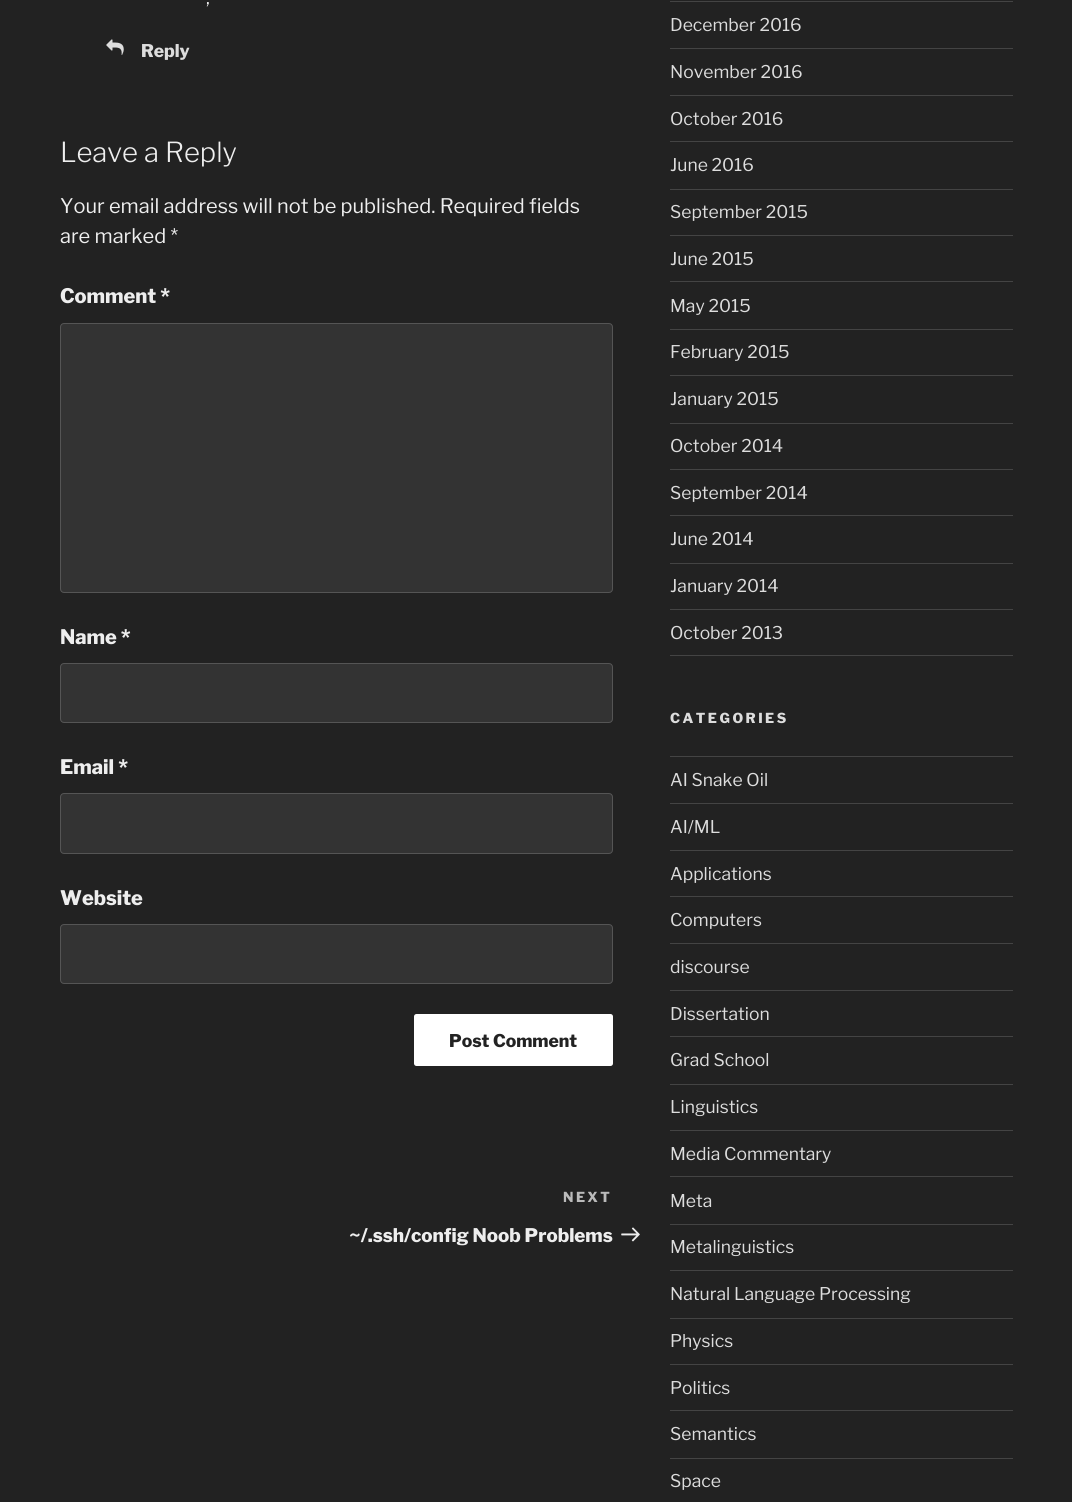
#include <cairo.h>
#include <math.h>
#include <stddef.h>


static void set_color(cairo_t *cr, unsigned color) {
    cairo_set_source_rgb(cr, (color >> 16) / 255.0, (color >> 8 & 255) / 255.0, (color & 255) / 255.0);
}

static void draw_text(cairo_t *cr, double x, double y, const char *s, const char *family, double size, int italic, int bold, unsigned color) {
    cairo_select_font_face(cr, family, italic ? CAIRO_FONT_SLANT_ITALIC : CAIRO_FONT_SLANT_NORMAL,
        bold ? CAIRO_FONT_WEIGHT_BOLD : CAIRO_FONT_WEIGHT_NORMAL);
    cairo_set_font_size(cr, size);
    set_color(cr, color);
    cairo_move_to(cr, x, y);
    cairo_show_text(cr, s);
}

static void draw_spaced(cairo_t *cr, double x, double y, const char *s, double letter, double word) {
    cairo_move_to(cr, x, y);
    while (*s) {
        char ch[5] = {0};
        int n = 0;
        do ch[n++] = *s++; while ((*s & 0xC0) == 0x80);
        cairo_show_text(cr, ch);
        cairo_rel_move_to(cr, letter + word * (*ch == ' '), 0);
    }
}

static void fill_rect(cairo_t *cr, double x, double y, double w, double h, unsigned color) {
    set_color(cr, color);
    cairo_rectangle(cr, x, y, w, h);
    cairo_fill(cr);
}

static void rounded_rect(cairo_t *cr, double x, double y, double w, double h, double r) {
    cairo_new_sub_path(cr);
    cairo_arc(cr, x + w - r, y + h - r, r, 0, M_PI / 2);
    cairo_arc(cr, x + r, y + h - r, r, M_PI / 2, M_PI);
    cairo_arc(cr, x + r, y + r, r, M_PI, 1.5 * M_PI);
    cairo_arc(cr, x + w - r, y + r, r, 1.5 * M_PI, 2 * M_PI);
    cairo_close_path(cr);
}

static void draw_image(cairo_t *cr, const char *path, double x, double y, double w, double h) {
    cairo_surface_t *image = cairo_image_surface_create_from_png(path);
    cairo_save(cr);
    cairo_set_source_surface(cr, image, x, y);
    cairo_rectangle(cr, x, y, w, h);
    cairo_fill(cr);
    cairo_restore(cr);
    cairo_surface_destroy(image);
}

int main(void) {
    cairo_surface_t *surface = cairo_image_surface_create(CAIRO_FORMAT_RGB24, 1072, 1502);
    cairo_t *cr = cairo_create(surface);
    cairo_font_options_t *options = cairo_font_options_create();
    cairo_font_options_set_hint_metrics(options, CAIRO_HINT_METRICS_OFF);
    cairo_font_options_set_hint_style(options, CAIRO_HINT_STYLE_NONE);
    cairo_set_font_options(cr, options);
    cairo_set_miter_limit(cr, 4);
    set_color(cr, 0x222222);
    cairo_paint(cr);
    draw_text(cr, 206, 4, ",", "Libre Franklin", 17.5, 0, 0, 0xEEEEEE);
    draw_image(cr, "assets/img1.png", 106, 39, 18, 16);
    draw_text(cr, 141, 57, "Reply", "Libre Franklin ExtraBold", 17.5, 0, 0, 0xDDDDDD);
    draw_text(cr, 60, 162, "Leave a Reply", "Libre Franklin Light", 27.5, 0, 0, 0xEEEEEE);
    draw_text(cr, 60, 213, "Your email address will not be published. Required fields", "Libre Franklin", 20, 0, 0, 0xEEEEEE);
    draw_text(cr, 60, 243, "are marked *", "Libre Franklin", 20, 0, 0, 0xEEEEEE);
    draw_text(cr, 60, 303, "Comment *", "Libre Franklin ExtraBold", 20, 0, 0, 0xEEEEEE);
    set_color(cr, 0x333333);
    rounded_rect(cr, 60.5, 323.5, 552, 269, 3.5);
    cairo_fill_preserve(cr);
    set_color(cr, 0x555555);
    cairo_set_line_width(cr, 1);
    cairo_stroke(cr);
    draw_text(cr, 60, 644, "Name *", "Libre Franklin ExtraBold", 20, 0, 0, 0xEEEEEE);
    set_color(cr, 0x333333);
    rounded_rect(cr, 60.5, 663.5, 552, 59, 3.5);
    cairo_fill_preserve(cr);
    set_color(cr, 0x555555);
    cairo_stroke(cr);
    draw_text(cr, 60, 774, "Email *", "Libre Franklin ExtraBold", 20, 0, 0, 0xEEEEEE);
    set_color(cr, 0x333333);
    rounded_rect(cr, 60.5, 793.5, 552, 60, 3.5);
    cairo_fill_preserve(cr);
    set_color(cr, 0x555555);
    cairo_stroke(cr);
    draw_text(cr, 60, 905, "Website", "Libre Franklin ExtraBold", 20, 0, 0, 0xEEEEEE);
    set_color(cr, 0x333333);
    rounded_rect(cr, 60.5, 924.5, 552, 59, 3.5);
    cairo_fill_preserve(cr);
    set_color(cr, 0x555555);
    cairo_stroke(cr);
    set_color(cr, 0xFFFFFF);
    rounded_rect(cr, 414, 1014, 199, 52, 2.5);
    cairo_fill(cr);
    draw_text(cr, 449, 1047, "Post Comment", "Libre Franklin ExtraBold", 17.5, 0, 0, 0x222222);
    cairo_set_font_size(cr, 13.75);
    set_color(cr, 0xBBBBBB);
    draw_spaced(cr, 563, 1202, "NEXT", 2.5, 0);
    draw_text(cr, 349, 1242, "~/.ssh/config Noob Problems", "Libre Franklin ExtraBold", 18.75, 0, 0, 0xEEEEEE);
    draw_image(cr, "assets/img2.png", 621, 1227, 19, 15);
    fill_rect(cr, 670, 1, 343, 1, 0x444444);
    fill_rect(cr, 670, 48, 343, 1, 0x444444);
    draw_text(cr, 670, 31, "December 2016", "Libre Franklin", 17.5, 0, 0, 0xDDDDDD);
    fill_rect(cr, 670, 95, 343, 1, 0x444444);
    draw_text(cr, 670, 78, "November 2016", "Libre Franklin", 17.5, 0, 0, 0xDDDDDD);
    fill_rect(cr, 670, 141, 343, 1, 0x444444);
    draw_text(cr, 670, 125, "October 2016", "Libre Franklin", 17.5, 0, 0, 0xDDDDDD);
    fill_rect(cr, 670, 189, 343, 1, 0x444444);
    draw_text(cr, 670, 171, "June 2016", "Libre Franklin", 17.5, 0, 0, 0xDDDDDD);
    fill_rect(cr, 670, 235, 343, 1, 0x444444);
    draw_text(cr, 670, 218, "September 2015", "Libre Franklin", 17.5, 0, 0, 0xDDDDDD);
    fill_rect(cr, 670, 281, 343, 1, 0x444444);
    draw_text(cr, 670, 265, "June 2015", "Libre Franklin", 17.5, 0, 0, 0xDDDDDD);
    fill_rect(cr, 670, 329, 343, 1, 0x444444);
    draw_text(cr, 670, 312, "May 2015", "Libre Franklin", 17.5, 0, 0, 0xDDDDDD);
    fill_rect(cr, 670, 375, 343, 1, 0x444444);
    draw_text(cr, 670, 358, "February 2015", "Libre Franklin", 17.5, 0, 0, 0xDDDDDD);
    fill_rect(cr, 670, 423, 343, 1, 0x444444);
    draw_text(cr, 670, 405, "January 2015", "Libre Franklin", 17.5, 0, 0, 0xDDDDDD);
    fill_rect(cr, 670, 469, 343, 1, 0x444444);
    draw_text(cr, 670, 452, "October 2014", "Libre Franklin", 17.5, 0, 0, 0xDDDDDD);
    fill_rect(cr, 670, 515, 343, 1, 0x444444);
    draw_text(cr, 670, 499, "September 2014", "Libre Franklin", 17.5, 0, 0, 0xDDDDDD);
    fill_rect(cr, 670, 563, 343, 1, 0x444444);
    draw_text(cr, 670, 545, "June 2014", "Libre Franklin", 17.5, 0, 0, 0xDDDDDD);
    fill_rect(cr, 670, 609, 343, 1, 0x444444);
    draw_text(cr, 670, 592, "January 2014", "Libre Franklin", 17.5, 0, 0, 0xDDDDDD);
    fill_rect(cr, 670, 655, 343, 1, 0x444444);
    draw_text(cr, 670, 639, "October 2013", "Libre Franklin", 17.5, 0, 0, 0xDDDDDD);
    cairo_select_font_face(cr, "Libre Franklin ExtraBold", CAIRO_FONT_SLANT_NORMAL, CAIRO_FONT_WEIGHT_NORMAL);
    cairo_set_font_size(cr, 13.75);
    draw_spaced(cr, 670, 723, "CATEGORIES", 2.5, 0);
    fill_rect(cr, 670, 756, 343, 1, 0x444444);
    fill_rect(cr, 670, 803, 343, 1, 0x444444);
    draw_text(cr, 670, 786, "AI Snake Oil", "Libre Franklin", 17.5, 0, 0, 0xDDDDDD);
    fill_rect(cr, 670, 850, 343, 1, 0x444444);
    draw_text(cr, 670, 833, "AI/ML", "Libre Franklin", 17.5, 0, 0, 0xDDDDDD);
    fill_rect(cr, 670, 896, 343, 1, 0x444444);
    draw_text(cr, 670, 880, "Applications", "Libre Franklin", 17.5, 0, 0, 0xDDDDDD);
    fill_rect(cr, 670, 943, 343, 1, 0x444444);
    draw_text(cr, 670, 926, "Computers", "Libre Franklin", 17.5, 0, 0, 0xDDDDDD);
    fill_rect(cr, 670, 990, 343, 1, 0x444444);
    draw_text(cr, 670, 973, "discourse", "Libre Franklin", 17.5, 0, 0, 0xDDDDDD);
    fill_rect(cr, 670, 1036, 343, 1, 0x444444);
    draw_text(cr, 670, 1020, "Dissertation", "Libre Franklin", 17.5, 0, 0, 0xDDDDDD);
    fill_rect(cr, 670, 1084, 343, 1, 0x444444);
    draw_text(cr, 670, 1066, "Grad School", "Libre Franklin", 17.5, 0, 0, 0xDDDDDD);
    fill_rect(cr, 670, 1130, 343, 1, 0x444444);
    draw_text(cr, 670, 1113, "Linguistics", "Libre Franklin", 17.5, 0, 0, 0xDDDDDD);
    fill_rect(cr, 670, 1176, 343, 1, 0x444444);
    draw_text(cr, 670, 1160, "Media Commentary", "Libre Franklin", 17.5, 0, 0, 0xDDDDDD);
    fill_rect(cr, 670, 1224, 343, 1, 0x444444);
    draw_text(cr, 670, 1207, "Meta", "Libre Franklin", 17.5, 0, 0, 0xDDDDDD);
    fill_rect(cr, 670, 1270, 343, 1, 0x444444);
    draw_text(cr, 670, 1253, "Metalinguistics", "Libre Franklin", 17.5, 0, 0, 0xDDDDDD);
    fill_rect(cr, 670, 1318, 343, 1, 0x444444);
    draw_text(cr, 670, 1300, "Natural Language Processing", "Libre Franklin", 17.5, 0, 0, 0xDDDDDD);
    fill_rect(cr, 670, 1364, 343, 1, 0x444444);
    draw_text(cr, 670, 1347, "Physics", "Libre Franklin", 17.5, 0, 0, 0xDDDDDD);
    fill_rect(cr, 670, 1410, 343, 1, 0x444444);
    draw_text(cr, 670, 1394, "Politics", "Libre Franklin", 17.5, 0, 0, 0xDDDDDD);
    fill_rect(cr, 670, 1458, 343, 1, 0x444444);
    draw_text(cr, 670, 1440, "Semantics", "Libre Franklin", 17.5, 0, 0, 0xDDDDDD);
    draw_text(cr, 670, 1487, "Space", "Libre Franklin", 17.5, 0, 0, 0xDDDDDD);
    cairo_surface_write_to_png(surface, "output.png");
    cairo_font_options_destroy(options);
    cairo_destroy(cr);
    cairo_surface_destroy(surface);
    return 0;
}
